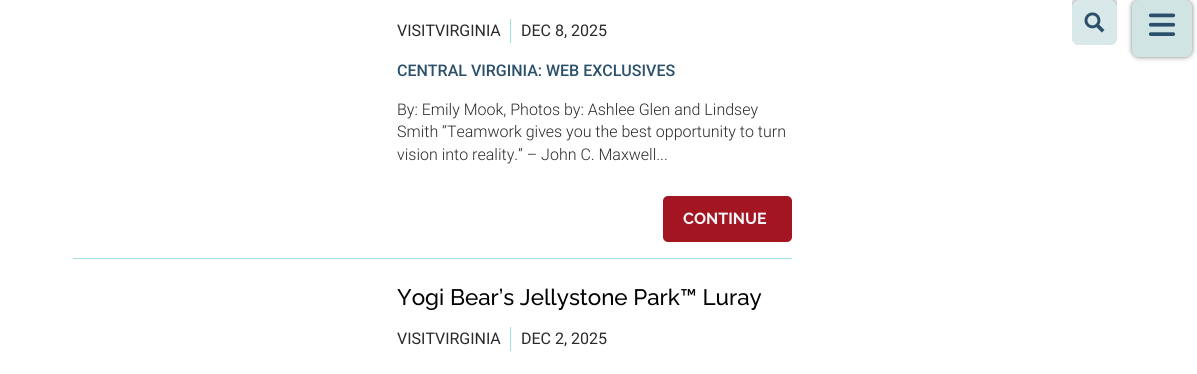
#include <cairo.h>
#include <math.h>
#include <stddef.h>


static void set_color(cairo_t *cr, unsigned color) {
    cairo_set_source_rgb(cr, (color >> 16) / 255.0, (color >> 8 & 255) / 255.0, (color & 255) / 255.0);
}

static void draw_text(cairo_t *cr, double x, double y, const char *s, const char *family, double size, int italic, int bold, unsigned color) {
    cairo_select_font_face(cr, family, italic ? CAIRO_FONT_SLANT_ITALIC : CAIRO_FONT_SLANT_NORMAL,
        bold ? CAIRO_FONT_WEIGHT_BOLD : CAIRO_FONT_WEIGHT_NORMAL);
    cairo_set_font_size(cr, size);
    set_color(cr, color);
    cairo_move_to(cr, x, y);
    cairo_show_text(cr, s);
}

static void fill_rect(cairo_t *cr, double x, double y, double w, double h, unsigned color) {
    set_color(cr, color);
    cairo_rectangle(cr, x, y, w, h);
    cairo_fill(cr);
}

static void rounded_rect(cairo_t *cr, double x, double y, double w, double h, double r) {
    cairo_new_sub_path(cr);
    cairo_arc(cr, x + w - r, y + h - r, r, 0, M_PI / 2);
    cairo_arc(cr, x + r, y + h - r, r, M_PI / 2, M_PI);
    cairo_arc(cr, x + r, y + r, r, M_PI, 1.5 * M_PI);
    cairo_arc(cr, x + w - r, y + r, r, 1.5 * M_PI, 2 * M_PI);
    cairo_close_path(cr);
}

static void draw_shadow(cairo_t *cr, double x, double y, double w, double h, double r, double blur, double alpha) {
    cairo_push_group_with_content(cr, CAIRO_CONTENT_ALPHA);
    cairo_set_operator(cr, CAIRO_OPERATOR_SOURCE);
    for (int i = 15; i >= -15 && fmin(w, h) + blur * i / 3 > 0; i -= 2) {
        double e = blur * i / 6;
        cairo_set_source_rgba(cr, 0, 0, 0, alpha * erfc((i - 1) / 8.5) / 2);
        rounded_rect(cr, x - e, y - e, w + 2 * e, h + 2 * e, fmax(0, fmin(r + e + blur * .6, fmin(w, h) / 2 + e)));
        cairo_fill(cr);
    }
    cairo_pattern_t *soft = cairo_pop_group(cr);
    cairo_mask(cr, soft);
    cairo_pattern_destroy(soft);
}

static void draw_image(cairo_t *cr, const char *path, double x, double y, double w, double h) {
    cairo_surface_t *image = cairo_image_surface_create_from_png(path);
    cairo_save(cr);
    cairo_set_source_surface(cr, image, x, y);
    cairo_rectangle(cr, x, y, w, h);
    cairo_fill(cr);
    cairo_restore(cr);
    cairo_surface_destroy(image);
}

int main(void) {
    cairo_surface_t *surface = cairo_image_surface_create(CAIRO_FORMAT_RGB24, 1197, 374);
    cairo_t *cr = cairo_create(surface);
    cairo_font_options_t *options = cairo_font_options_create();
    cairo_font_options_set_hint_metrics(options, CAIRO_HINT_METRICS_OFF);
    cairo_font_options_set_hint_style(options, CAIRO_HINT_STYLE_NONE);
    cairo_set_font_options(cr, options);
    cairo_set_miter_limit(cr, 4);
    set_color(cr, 0xFFFFFF);
    cairo_paint(cr);
    fill_rect(cr, 73, 258, 719, 1, 0xA3DEDE);
    draw_text(cr, 397, 36, "VISITVIRGINIA", "Roboto", 16, 0, 0, 0x2A2A2A);
    fill_rect(cr, 510, 19, 1, 24, 0xA3DEDE);
    draw_text(cr, 521, 36, "DEC 8, 2025", "Roboto", 16, 0, 0, 0x2A2A2A);
    draw_text(cr, 397, 76, "CENTRAL VIRGINIA: WEB EXCLUSIVES", "Roboto Medium", 16, 0, 0, 0x2B506B);
    draw_text(cr, 397, 115, "By: Emily Mook, Photos by: Ashlee Glen and Lindsey", "Roboto Light", 16, 0, 0, 0x2A2A2A);
    draw_text(cr, 397, 137, "Smith “Teamwork gives you the best opportunity to turn", "Roboto Light", 16, 0, 0, 0x2A2A2A);
    draw_text(cr, 397, 160, "vision into reality.” – John C. Maxwell...", "Roboto Light", 16, 0, 0, 0x2A2A2A);
    set_color(cr, 0xA31621);
    rounded_rect(cr, 663, 196, 129, 46, 5);
    cairo_fill(cr);
    draw_text(cr, 683, 224, "CONTINUE", "Raleway Thin", 16, 0, 0, 0xF3F5FA);
    draw_text(cr, 397, 305, "Yogi Bear’s Jellystone Park™ Luray", "Raleway Medium", 22.4, 0, 0, 0x000000);
    draw_text(cr, 397, 344, "VISITVIRGINIA", "Roboto", 16, 0, 0, 0x2A2A2A);
    fill_rect(cr, 510, 327, 1, 24, 0xA3DEDE);
    draw_text(cr, 521, 344, "DEC 2, 2025", "Roboto", 16, 0, 0, 0x2A2A2A);
    cairo_save(cr);
    cairo_new_path(cr);
    cairo_move_to(cr, 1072, 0);
    cairo_line_to(cr, 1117, 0);
    cairo_line_to(cr, 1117, 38);
    cairo_curve_to(cr, 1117, 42, 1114, 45, 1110, 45);
    cairo_line_to(cr, 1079, 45);
    cairo_curve_to(cr, 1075, 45, 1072, 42, 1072, 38);
    cairo_close_path(cr);
    cairo_clip(cr);
    set_color(cr, 0x000000);
    draw_shadow(cr, 1072, 0, 45, 45, 7, 2.5, 0.65);
    cairo_restore(cr);
    set_color(cr, 0xFFFFFF);
    rounded_rect(cr, 1072, 0, 45, 45, 7);
    cairo_fill(cr);
    cairo_set_source_rgba(cr, 0, 0.408, 0.412, 0.15);
    rounded_rect(cr, 1072, 0, 45, 45, 7);
    cairo_fill(cr);
    draw_image(cr, "assets/img1.png", 1084, 12, 21, 21);
    set_color(cr, 0x000000);
    draw_shadow(cr, 1132, 0, 60, 57, 7, 2.5, 0.5);
    set_color(cr, 0xD1E4E4);
    rounded_rect(cr, 1132, 0, 60, 57, 7);
    cairo_fill(cr);
    draw_image(cr, "assets/img2.png", 1148, 13, 28, 23);
    cairo_surface_write_to_png(surface, "output.png");
    cairo_font_options_destroy(options);
    cairo_destroy(cr);
    cairo_surface_destroy(surface);
    return 0;
}
